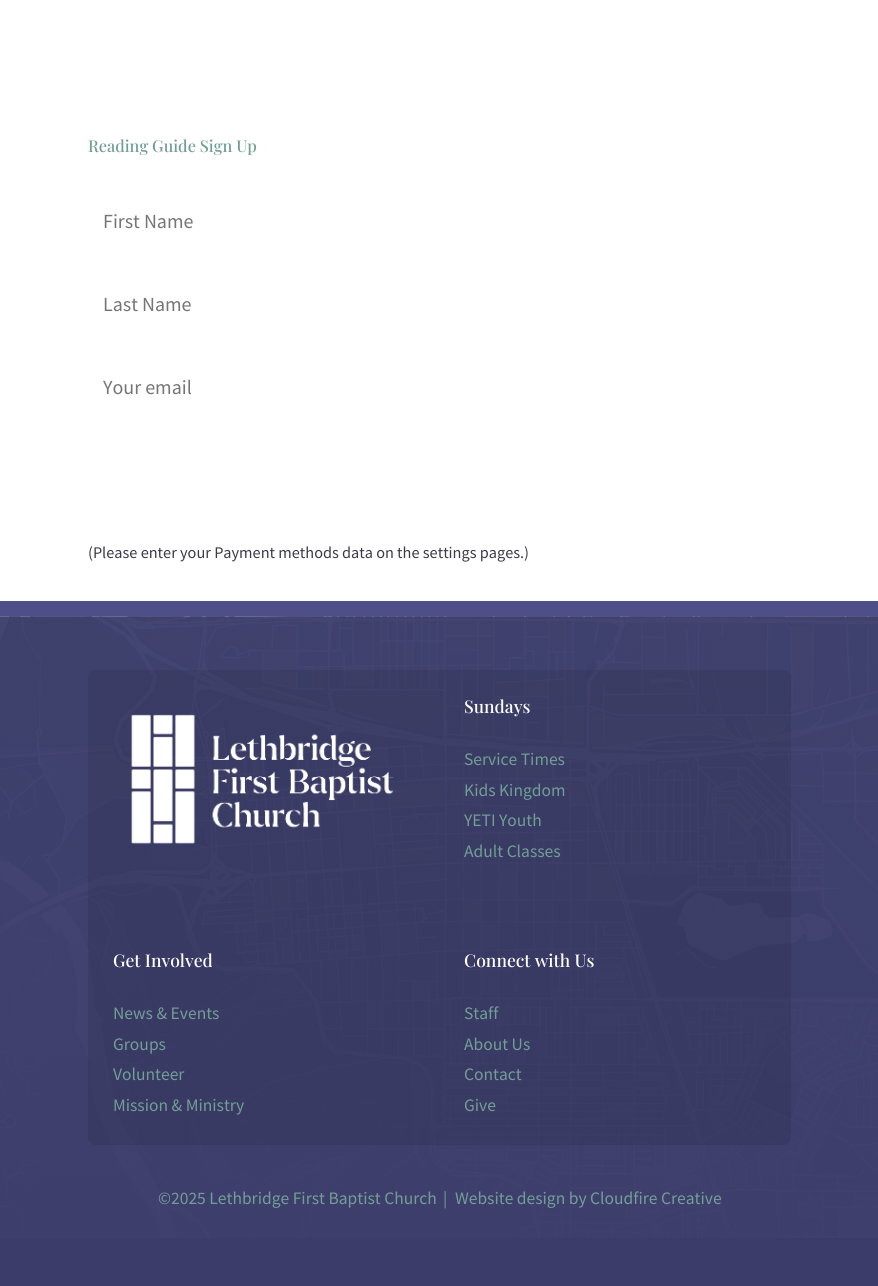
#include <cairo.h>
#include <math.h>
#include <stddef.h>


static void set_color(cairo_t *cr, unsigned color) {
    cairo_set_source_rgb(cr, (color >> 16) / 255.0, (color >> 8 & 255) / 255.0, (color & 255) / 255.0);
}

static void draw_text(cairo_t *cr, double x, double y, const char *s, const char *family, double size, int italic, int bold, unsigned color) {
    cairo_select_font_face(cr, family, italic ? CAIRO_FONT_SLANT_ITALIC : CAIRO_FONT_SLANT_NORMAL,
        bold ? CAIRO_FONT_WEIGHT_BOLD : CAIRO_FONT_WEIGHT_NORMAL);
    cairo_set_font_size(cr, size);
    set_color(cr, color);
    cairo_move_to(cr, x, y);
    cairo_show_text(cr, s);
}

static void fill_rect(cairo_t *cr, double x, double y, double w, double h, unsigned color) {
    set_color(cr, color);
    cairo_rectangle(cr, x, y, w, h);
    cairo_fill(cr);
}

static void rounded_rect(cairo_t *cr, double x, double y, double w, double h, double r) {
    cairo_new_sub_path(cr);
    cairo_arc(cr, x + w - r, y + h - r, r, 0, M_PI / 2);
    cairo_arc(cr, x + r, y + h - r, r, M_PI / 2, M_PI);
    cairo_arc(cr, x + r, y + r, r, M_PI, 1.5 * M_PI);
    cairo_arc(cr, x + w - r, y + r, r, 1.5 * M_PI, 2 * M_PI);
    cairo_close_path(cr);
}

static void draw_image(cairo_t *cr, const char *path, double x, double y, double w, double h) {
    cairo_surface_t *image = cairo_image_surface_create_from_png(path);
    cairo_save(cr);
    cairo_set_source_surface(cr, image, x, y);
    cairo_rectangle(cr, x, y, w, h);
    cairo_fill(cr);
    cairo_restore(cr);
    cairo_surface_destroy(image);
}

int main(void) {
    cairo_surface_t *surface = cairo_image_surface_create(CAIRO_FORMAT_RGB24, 878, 1286);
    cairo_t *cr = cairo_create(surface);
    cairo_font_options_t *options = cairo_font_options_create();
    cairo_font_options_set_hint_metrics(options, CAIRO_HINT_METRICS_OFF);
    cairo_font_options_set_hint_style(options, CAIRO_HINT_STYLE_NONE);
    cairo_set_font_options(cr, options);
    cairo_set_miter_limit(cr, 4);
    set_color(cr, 0xFFFFFF);
    cairo_paint(cr);
    draw_text(cr, 88, 152, "Reading Guide Sign Up", "Playfair Display Medium", 16.25, 0, 0, 0x719E95);
    draw_text(cr, 103, 228, "First Name", "Source Sans Pro", 20, 0, 0, 0x757575);
    draw_text(cr, 103, 311, "Last Name", "Source Sans Pro", 20, 0, 0, 0x757575);
    draw_text(cr, 103, 394, "Your email", "Source Sans Pro", 20, 0, 0, 0x757575);
    draw_text(cr, 88, 558, "(Please enter your Payment methods data on the settings pages.)", "Source Sans Pro", 16.25, 0, 0, 0x3C3A47);
    fill_rect(cr, 0, 616, 878, 670, 0x3C3C6B);
    draw_image(cr, "assets/img1.png", 0, 616, 878, 622);
    fill_rect(cr, 0, 601, 878, 15, 0x4E4E89);
    cairo_set_source_rgba(cr, 0, 0, 0, 0.08);
    rounded_rect(cr, 88, 670, 703, 475, 8);
    cairo_fill(cr);
    draw_image(cr, "assets/img2.png", 131, 714, 263, 130);
    draw_text(cr, 464, 713, "Sundays", "Playfair Display Medium", 17.5, 0, 0, 0xFFFFFF);
    draw_text(cr, 464, 765, "Service Times", "Source Sans Pro", 17.5, 0, 0, 0x719E95);
    draw_text(cr, 464, 796, "Kids Kingdom", "Source Sans Pro", 17.5, 0, 0, 0x719E95);
    draw_text(cr, 464, 826, "YETI Youth", "Source Sans Pro", 17.5, 0, 0, 0x719E95);
    draw_text(cr, 464, 857, "Adult Classes", "Source Sans Pro", 17.5, 0, 0, 0x719E95);
    draw_text(cr, 113, 967, "Get Involved", "Playfair Display Medium", 17.5, 0, 0, 0xFFFFFF);
    draw_text(cr, 113, 1019, "News & Events", "Source Sans Pro", 17.5, 0, 0, 0x719E95);
    draw_text(cr, 113, 1050, "Groups", "Source Sans Pro", 17.5, 0, 0, 0x719E95);
    draw_text(cr, 113, 1080, "Volunteer", "Source Sans Pro", 17.5, 0, 0, 0x719E95);
    draw_text(cr, 113, 1111, "Mission & Ministry", "Source Sans Pro", 17.5, 0, 0, 0x719E95);
    draw_text(cr, 464, 967, "Connect with Us", "Playfair Display Medium", 17.5, 0, 0, 0xFFFFFF);
    draw_text(cr, 464, 1019, "Staff", "Source Sans Pro", 17.5, 0, 0, 0x719E95);
    draw_text(cr, 464, 1050, "About Us", "Source Sans Pro", 17.5, 0, 0, 0x719E95);
    draw_text(cr, 464, 1080, "Contact", "Source Sans Pro", 17.5, 0, 0, 0x719E95);
    draw_text(cr, 464, 1111, "Give", "Source Sans Pro", 17.5, 0, 0, 0x719E95);
    draw_text(cr, 158, 1204, "©2025 Lethbridge First Baptist Church", "Source Sans Pro", 17.5, 0, 0, 0x719E95);
    draw_text(cr, 443, 1204, "|", "Source Sans Pro", 17.5, 0, 0, 0x719E95);
    draw_text(cr, 455, 1204, "Website design by Cloudfire Creative", "Source Sans Pro", 17.5, 0, 0, 0x719E95);
    cairo_surface_write_to_png(surface, "output.png");
    cairo_font_options_destroy(options);
    cairo_destroy(cr);
    cairo_surface_destroy(surface);
    return 0;
}
